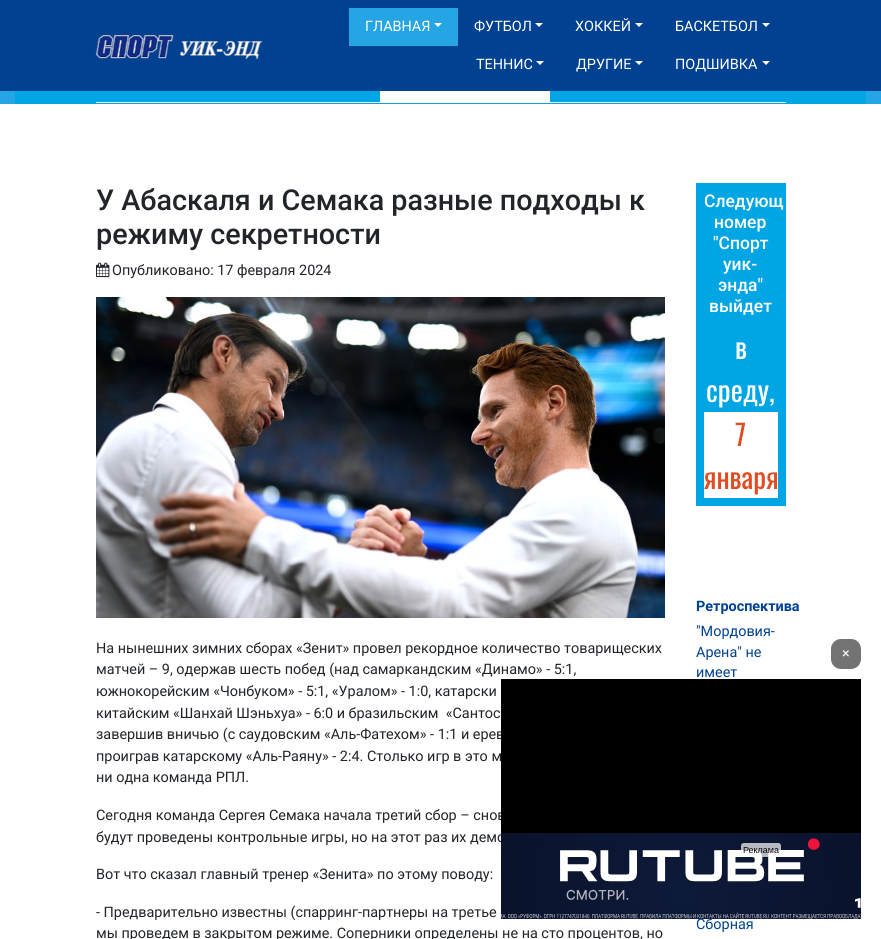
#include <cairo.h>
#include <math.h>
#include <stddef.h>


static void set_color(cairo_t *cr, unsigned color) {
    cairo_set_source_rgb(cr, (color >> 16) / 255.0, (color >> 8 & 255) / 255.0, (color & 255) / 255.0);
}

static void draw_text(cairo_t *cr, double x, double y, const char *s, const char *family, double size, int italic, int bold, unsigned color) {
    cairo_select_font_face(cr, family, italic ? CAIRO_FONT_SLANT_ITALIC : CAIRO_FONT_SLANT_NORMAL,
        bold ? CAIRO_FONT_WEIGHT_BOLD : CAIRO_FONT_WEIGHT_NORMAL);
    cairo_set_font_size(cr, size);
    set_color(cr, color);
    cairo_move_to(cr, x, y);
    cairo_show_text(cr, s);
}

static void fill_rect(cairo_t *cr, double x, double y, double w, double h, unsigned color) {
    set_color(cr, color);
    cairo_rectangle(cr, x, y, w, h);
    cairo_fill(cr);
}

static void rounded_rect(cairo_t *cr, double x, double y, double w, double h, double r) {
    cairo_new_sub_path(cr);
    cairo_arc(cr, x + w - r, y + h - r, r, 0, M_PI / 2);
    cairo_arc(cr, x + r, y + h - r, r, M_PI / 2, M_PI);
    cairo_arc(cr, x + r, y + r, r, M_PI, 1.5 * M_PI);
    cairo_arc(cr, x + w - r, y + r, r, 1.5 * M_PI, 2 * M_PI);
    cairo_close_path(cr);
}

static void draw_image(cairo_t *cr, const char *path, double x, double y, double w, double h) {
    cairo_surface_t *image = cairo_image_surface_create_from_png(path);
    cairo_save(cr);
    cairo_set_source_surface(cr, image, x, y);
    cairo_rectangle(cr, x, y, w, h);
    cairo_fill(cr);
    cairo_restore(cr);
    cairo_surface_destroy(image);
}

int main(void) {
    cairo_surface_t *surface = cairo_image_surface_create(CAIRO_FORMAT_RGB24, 881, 939);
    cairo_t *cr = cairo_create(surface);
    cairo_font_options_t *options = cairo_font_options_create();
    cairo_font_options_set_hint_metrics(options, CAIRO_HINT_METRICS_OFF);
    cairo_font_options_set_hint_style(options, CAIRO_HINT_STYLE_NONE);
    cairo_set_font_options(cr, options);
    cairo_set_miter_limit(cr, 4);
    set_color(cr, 0xFFFFFF);
    cairo_paint(cr);
    fill_rect(cr, 0, 0, 881, 91, 0x004192);
    draw_image(cr, "assets/img1.png", 95, 35, 167, 25);
    fill_rect(cr, 349, 8, 109, 38, 0x25A5E4);
    draw_text(cr, 365, 31, "ГЛАВНАЯ", "Roboto", 14.4, 0, 0, 0xFFFFFF);
    cairo_new_path(cr);
    cairo_move_to(cr, 434, 23);
    cairo_line_to(cr, 442, 23);
    cairo_line_to(cr, 438, 27);
    cairo_close_path(cr);
    cairo_fill(cr);
    draw_text(cr, 474, 31, "ФУТБОЛ", "Roboto", 14.4, 0, 0, 0xFFFFFF);
    cairo_new_path(cr);
    cairo_move_to(cr, 535, 23);
    cairo_line_to(cr, 543, 23);
    cairo_line_to(cr, 539, 27);
    cairo_close_path(cr);
    cairo_fill(cr);
    draw_text(cr, 575, 31, "ХОККЕЙ", "Roboto", 14.4, 0, 0, 0xFFFFFF);
    cairo_new_path(cr);
    cairo_move_to(cr, 635, 23);
    cairo_line_to(cr, 643, 23);
    cairo_line_to(cr, 639, 27);
    cairo_close_path(cr);
    cairo_fill(cr);
    draw_text(cr, 675, 31, "БАСКЕТБОЛ", "Roboto", 14.4, 0, 0, 0xFFFFFF);
    cairo_new_path(cr);
    cairo_move_to(cr, 762, 23);
    cairo_line_to(cr, 770, 23);
    cairo_line_to(cr, 766, 27);
    cairo_close_path(cr);
    cairo_fill(cr);
    draw_text(cr, 476, 69, "ТЕННИС", "Roboto", 14.4, 0, 0, 0xFFFFFF);
    cairo_new_path(cr);
    cairo_move_to(cr, 536, 61);
    cairo_line_to(cr, 544, 61);
    cairo_line_to(cr, 540, 65);
    cairo_close_path(cr);
    cairo_fill(cr);
    draw_text(cr, 576, 69, "ДРУГИЕ", "Roboto", 14.4, 0, 0, 0xFFFFFF);
    cairo_new_path(cr);
    cairo_move_to(cr, 635, 61);
    cairo_line_to(cr, 643, 61);
    cairo_line_to(cr, 639, 65);
    cairo_close_path(cr);
    cairo_fill(cr);
    draw_text(cr, 675, 69, "ПОДШИВКА", "Roboto", 14.4, 0, 0, 0xFFFFFF);
    cairo_new_path(cr);
    cairo_move_to(cr, 762, 61);
    cairo_line_to(cr, 770, 61);
    cairo_line_to(cr, 766, 65);
    cairo_close_path(cr);
    cairo_fill(cr);
    fill_rect(cr, 0, 91, 881, 13, 0x25A5E4);
    fill_rect(cr, 15, 91, 851, 13, 0x00A5E4);
    fill_rect(cr, 96, 102, 690, 1, 0xFFFFFF);
    fill_rect(cr, 380, 91, 170, 11, 0xFFFFFF);
    draw_text(cr, 96, 210, "У Абаскаля и Семака разные подходы к", "Roboto Medium", 28.75, 0, 0, 0x212529);
    draw_text(cr, 96, 244, "режиму секретности", "Roboto Medium", 28.75, 0, 0, 0x212529);
    draw_image(cr, "assets/img2.png", 96, 262, 14, 16);
    draw_text(cr, 112, 275, "Опубликовано: 17 февраля 2024", "Roboto", 14.4, 0, 0, 0x212529);
    draw_image(cr, "assets/img3.png", 96, 297, 569, 321);
    draw_text(cr, 96, 653, "На нынешних зимних сборах «Зенит» провел рекордное количество товарищеских", "Roboto", 14.4, 0, 0, 0x212529);
    draw_text(cr, 96, 674, "матчей – 9, одержав шесть побед (над самаркандским «Динамо» - 5:1,", "Roboto", 14.4, 0, 0, 0x212529);
    draw_text(cr, 96, 696, "южнокорейским «Чонбуком» - 5:1, «Уралом» - 1:0, катарски", "Roboto", 14.4, 0, 0, 0x212529);
    draw_text(cr, 96, 718, "китайским «Шанхай Шэньхуа» - 6:0 и бразильским  «Сантос", "Roboto", 14.4, 0, 0, 0x212529);
    draw_text(cr, 96, 739, "завершив вничью (с саудовским «Аль-Фатехом» - 1:1 и ерев", "Roboto", 14.4, 0, 0, 0x212529);
    draw_text(cr, 96, 761, "проиграв катарскому «Аль-Раяну» - 2:4. Столько игр в это м", "Roboto", 14.4, 0, 0, 0x212529);
    draw_text(cr, 96, 782, "ни одна команда РПЛ.", "Roboto", 14.4, 0, 0, 0x212529);
    draw_text(cr, 96, 820, "Сегодня команда Сергея Семака начала третий сбор – снов", "Roboto", 14.4, 0, 0, 0x212529);
    draw_text(cr, 96, 842, "будут проведены контрольные игры, но на этот раз их демо", "Roboto", 14.4, 0, 0, 0x212529);
    draw_text(cr, 96, 879, "Вот что сказал главный тренер «Зенита» по этому поводу:", "Roboto", 14.4, 0, 0, 0x212529);
    draw_text(cr, 96, 917, "- Предварительно известны (спарринг-партнеры на третье", "Roboto", 14.4, 0, 0, 0x212529);
    draw_text(cr, 96, 938, "мы проведем в закрытом режиме. Соперники определены не на сто процентов, но", "Roboto", 14.4, 0, 0, 0x212529);
    fill_rect(cr, 696, 183, 90, 323, 0x00A5E4);
    draw_text(cr, 704, 207, "Следующ", "Roboto Medium", 17.5, 0, 0, 0xFFFFFF);
    draw_text(cr, 714, 228, "номер", "Roboto Medium", 17.5, 0, 0, 0xFFFFFF);
    draw_text(cr, 713, 249, "\"Спорт", "Roboto Medium", 17.5, 0, 0, 0xFFFFFF);
    draw_text(cr, 723, 270, "уик-", "Roboto Medium", 17.5, 0, 0, 0xFFFFFF);
    draw_text(cr, 718, 291, "энда\"", "Roboto Medium", 17.5, 0, 0, 0xFFFFFF);
    draw_text(cr, 709, 312, "выйдет", "Roboto Medium", 17.5, 0, 0, 0xFFFFFF);
    draw_text(cr, 735, 359, "в", "Oswald", 28.75, 0, 0, 0xFFFFFF);
    draw_text(cr, 706, 402, "среду,", "Oswald", 28.75, 0, 0, 0xFFFFFF);
    fill_rect(cr, 704, 412, 74, 86, 0xFFFFFF);
    draw_text(cr, 735, 446, "7", "Oswald", 28.75, 0, 0, 0xE14C22);
    draw_text(cr, 704, 489, "января", "Oswald", 28.75, 0, 0, 0xE14C22);
    draw_text(cr, 696, 611, "Ретроспектива", "Roboto", 14.4, 0, 1, 0x004192);
    draw_text(cr, 696, 636, "\"Мордовия-", "Roboto", 14.4, 0, 0, 0x004192);
    draw_text(cr, 696, 657, "Арена\" не", "Roboto", 14.4, 0, 0, 0x004192);
    draw_text(cr, 696, 677, "имеет", "Roboto", 14.4, 0, 0, 0x004192);
    draw_text(cr, 696, 929, "Сборная", "Roboto", 14.4, 0, 0, 0x004192);
    set_color(cr, 0x737373);
    rounded_rect(cr, 831, 639, 30, 30, 10);
    cairo_fill(cr);
    draw_text(cr, 842, 658, "×", "Roboto", 14.4, 0, 0, 0xFFFFFF);
    fill_rect(cr, 501, 679, 360, 154, 0x000000);
    draw_image(cr, "assets/img4.png", 501, 833, 360, 86);
    cairo_surface_write_to_png(surface, "output.png");
    cairo_font_options_destroy(options);
    cairo_destroy(cr);
    cairo_surface_destroy(surface);
    return 0;
}
